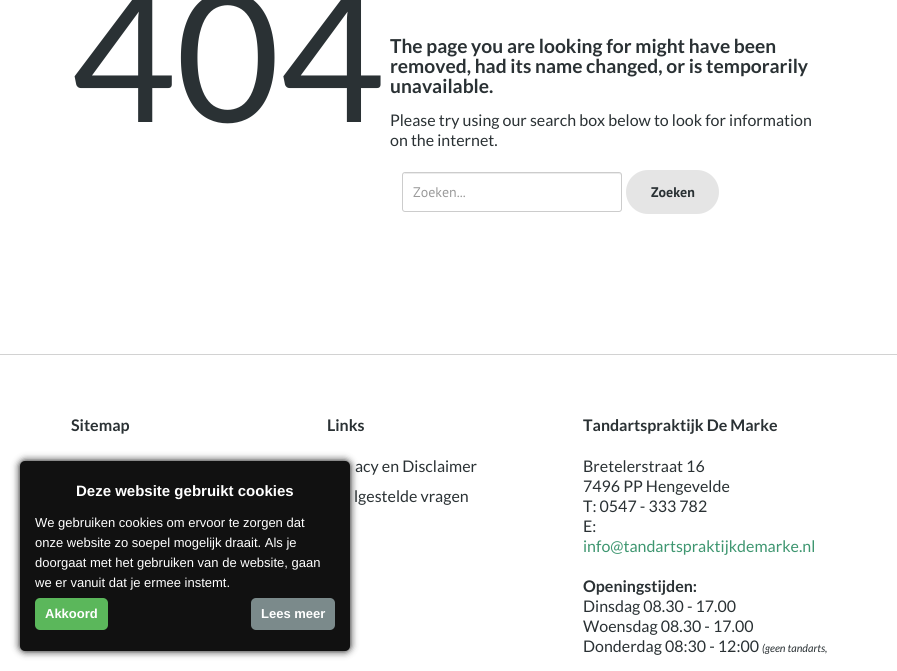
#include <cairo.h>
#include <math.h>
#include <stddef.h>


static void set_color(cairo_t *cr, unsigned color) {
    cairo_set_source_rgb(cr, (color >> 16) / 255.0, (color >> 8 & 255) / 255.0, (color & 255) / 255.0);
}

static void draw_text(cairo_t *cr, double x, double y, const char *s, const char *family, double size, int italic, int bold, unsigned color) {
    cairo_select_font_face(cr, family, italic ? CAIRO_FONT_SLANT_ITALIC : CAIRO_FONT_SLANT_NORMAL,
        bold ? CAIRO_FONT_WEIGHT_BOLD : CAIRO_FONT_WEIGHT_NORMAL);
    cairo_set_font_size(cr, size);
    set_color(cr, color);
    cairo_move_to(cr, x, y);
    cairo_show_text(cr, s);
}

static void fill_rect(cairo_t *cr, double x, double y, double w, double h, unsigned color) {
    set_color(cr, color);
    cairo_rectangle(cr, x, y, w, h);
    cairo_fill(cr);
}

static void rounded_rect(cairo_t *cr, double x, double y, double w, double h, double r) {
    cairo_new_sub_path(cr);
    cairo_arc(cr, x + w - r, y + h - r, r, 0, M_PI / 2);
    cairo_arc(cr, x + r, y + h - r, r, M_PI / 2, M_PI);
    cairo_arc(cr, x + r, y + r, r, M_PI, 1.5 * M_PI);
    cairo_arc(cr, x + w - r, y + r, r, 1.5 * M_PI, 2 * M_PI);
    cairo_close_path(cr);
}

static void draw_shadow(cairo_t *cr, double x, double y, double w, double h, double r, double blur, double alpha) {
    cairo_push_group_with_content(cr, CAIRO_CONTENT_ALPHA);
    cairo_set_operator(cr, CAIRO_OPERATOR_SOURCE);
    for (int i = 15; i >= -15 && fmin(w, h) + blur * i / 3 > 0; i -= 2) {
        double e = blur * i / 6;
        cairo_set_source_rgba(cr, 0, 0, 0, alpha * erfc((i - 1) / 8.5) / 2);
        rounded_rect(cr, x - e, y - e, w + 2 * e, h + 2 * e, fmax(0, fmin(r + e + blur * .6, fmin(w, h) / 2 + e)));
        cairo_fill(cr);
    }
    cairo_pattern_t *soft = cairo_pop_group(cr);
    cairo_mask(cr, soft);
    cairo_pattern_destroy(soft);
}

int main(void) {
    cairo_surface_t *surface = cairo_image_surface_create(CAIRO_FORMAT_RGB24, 897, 671);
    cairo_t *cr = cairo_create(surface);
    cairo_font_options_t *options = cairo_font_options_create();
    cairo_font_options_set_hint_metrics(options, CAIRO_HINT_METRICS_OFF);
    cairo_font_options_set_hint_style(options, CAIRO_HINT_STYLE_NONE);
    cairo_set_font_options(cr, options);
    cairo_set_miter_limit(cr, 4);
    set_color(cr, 0xFFFFFF);
    cairo_paint(cr);
    draw_text(cr, 71, 122, "404", "Lato", 180, 0, 0, 0x2A3134);
    draw_text(cr, 390, 53, "The page you are looking for might have been", "Lato", 19.2, 0, 1, 0x2A3134);
    draw_text(cr, 390, 73, "removed, had its name changed, or is temporarily", "Lato", 19.2, 0, 1, 0x2A3134);
    draw_text(cr, 390, 93, "unavailable.", "Lato", 19.2, 0, 1, 0x2A3134);
    draw_text(cr, 390, 126, "Please try using our search box below to look for information", "Lato", 16, 0, 0, 0x2A3134);
    draw_text(cr, 390, 146, "on the internet.", "Lato", 16, 0, 0, 0x2A3134);
    set_color(cr, 0xECECEC);
    cairo_new_path(cr);
    cairo_move_to(cr, 405, 174);
    cairo_line_to(cr, 619, 174);
    cairo_curve_to(cr, 620, 174, 621, 175, 621, 176);
    cairo_curve_to(cr, 621, 175, 621, 173, 619, 173);
    cairo_line_to(cr, 405, 173);
    cairo_line_to(cr, 404, 174);
    cairo_line_to(cr, 403, 176);
    cairo_curve_to(cr, 403, 175, 404, 174, 405, 174);
    cairo_close_path(cr);
    cairo_fill(cr);
    rounded_rect(cr, 402.5, 172.5, 219, 39, 2.5);
    set_color(cr, 0xCCCCCC);
    cairo_set_line_width(cr, 1);
    cairo_stroke(cr);
    draw_text(cr, 413, 197, "Zoeken...", "PT Sans", 14, 0, 0, 0x9A9A9A);
    set_color(cr, 0xE5E5E5);
    rounded_rect(cr, 626, 170, 93, 44, 22);
    cairo_fill(cr);
    draw_text(cr, 651, 197, "Zoeken", "PT Sans", 14, 0, 1, 0x2A3134);
    fill_rect(cr, 0, 354, 897, 1, 0xD2D2D2);
    draw_text(cr, 71, 431, "Sitemap", "Lato", 16, 0, 1, 0x2A3134);
    draw_text(cr, 327, 431, "Links", "Lato", 16, 0, 1, 0x2A3134);
    draw_text(cr, 355, 472, "acy en Disclaimer", "Lato", 16, 0, 0, 0x2A3134);
    draw_text(cr, 354, 502, "lgestelde vragen", "Lato", 16, 0, 0, 0x2A3134);
    draw_text(cr, 583, 431, "Tandartspraktijk De Marke", "Lato", 16, 0, 1, 0x2A3134);
    draw_text(cr, 583, 472, "Bretelerstraat 16", "Lato", 16, 0, 0, 0x2A3134);
    draw_text(cr, 583, 492, "7496 PP Hengevelde", "Lato", 16, 0, 0, 0x2A3134);
    draw_text(cr, 583, 512, "T: 0547 - 333 782", "Lato", 16, 0, 0, 0x2A3134);
    draw_text(cr, 583, 532, "E:", "Lato", 16, 0, 0, 0x2A3134);
    draw_text(cr, 583, 552, "info@tandartspraktijkdemarke.nl", "Lato", 16, 0, 0, 0x3E9670);
    draw_text(cr, 583, 592, "Openingstijden:", "Lato", 16, 0, 1, 0x2A3134);
    draw_text(cr, 583, 612, "Dinsdag 08.30 - 17.00", "Lato", 16, 0, 0, 0x2A3134);
    draw_text(cr, 583, 632, "Woensdag 08.30 - 17.00", "Lato", 16, 0, 0, 0x2A3134);
    draw_text(cr, 583, 652, "Donderdag 08:30 - 12:00", "Lato", 16, 0, 0, 0x2A3134);
    draw_text(cr, 762, 652, "(geen tandarts,", "Lato", 10.75, 1, 0, 0x2A3134);
    set_color(cr, 0x000000);
    draw_shadow(cr, 20, 461, 330, 190, 5, 4, 1);
    set_color(cr, 0x111111);
    rounded_rect(cr, 20, 461, 330, 190, 5);
    cairo_fill(cr);
    draw_text(cr, 76, 496, "Deze website gebruikt cookies", "Liberation Sans", 15, 0, 1, 0xFFFFFF);
    draw_text(cr, 35, 527, "We gebruiken cookies om ervoor te zorgen dat", "Liberation Sans", 13, 0, 0, 0xFFFFFF);
    draw_text(cr, 35, 547, "onze website zo soepel mogelijk draait. Als je", "Liberation Sans", 13, 0, 0, 0xFFFFFF);
    draw_text(cr, 35, 567, "doorgaat met het gebruiken van de website, gaan", "Liberation Sans", 13, 0, 0, 0xFFFFFF);
    draw_text(cr, 35, 587, "we er vanuit dat je ermee instemt.", "Liberation Sans", 13, 0, 0, 0xFFFFFF);
    set_color(cr, 0x5BB75B);
    rounded_rect(cr, 35, 598, 73, 32, 5);
    cairo_fill(cr);
    draw_text(cr, 45, 618, "Akkoord", "Liberation Sans", 13, 0, 1, 0xFFFFFF);
    set_color(cr, 0x7B8A8B);
    rounded_rect(cr, 251, 598, 84, 32, 5);
    cairo_fill(cr);
    draw_text(cr, 261, 618, "Lees meer", "Liberation Sans", 13, 0, 1, 0xFFFFFF);
    cairo_surface_write_to_png(surface, "output.png");
    cairo_font_options_destroy(options);
    cairo_destroy(cr);
    cairo_surface_destroy(surface);
    return 0;
}
